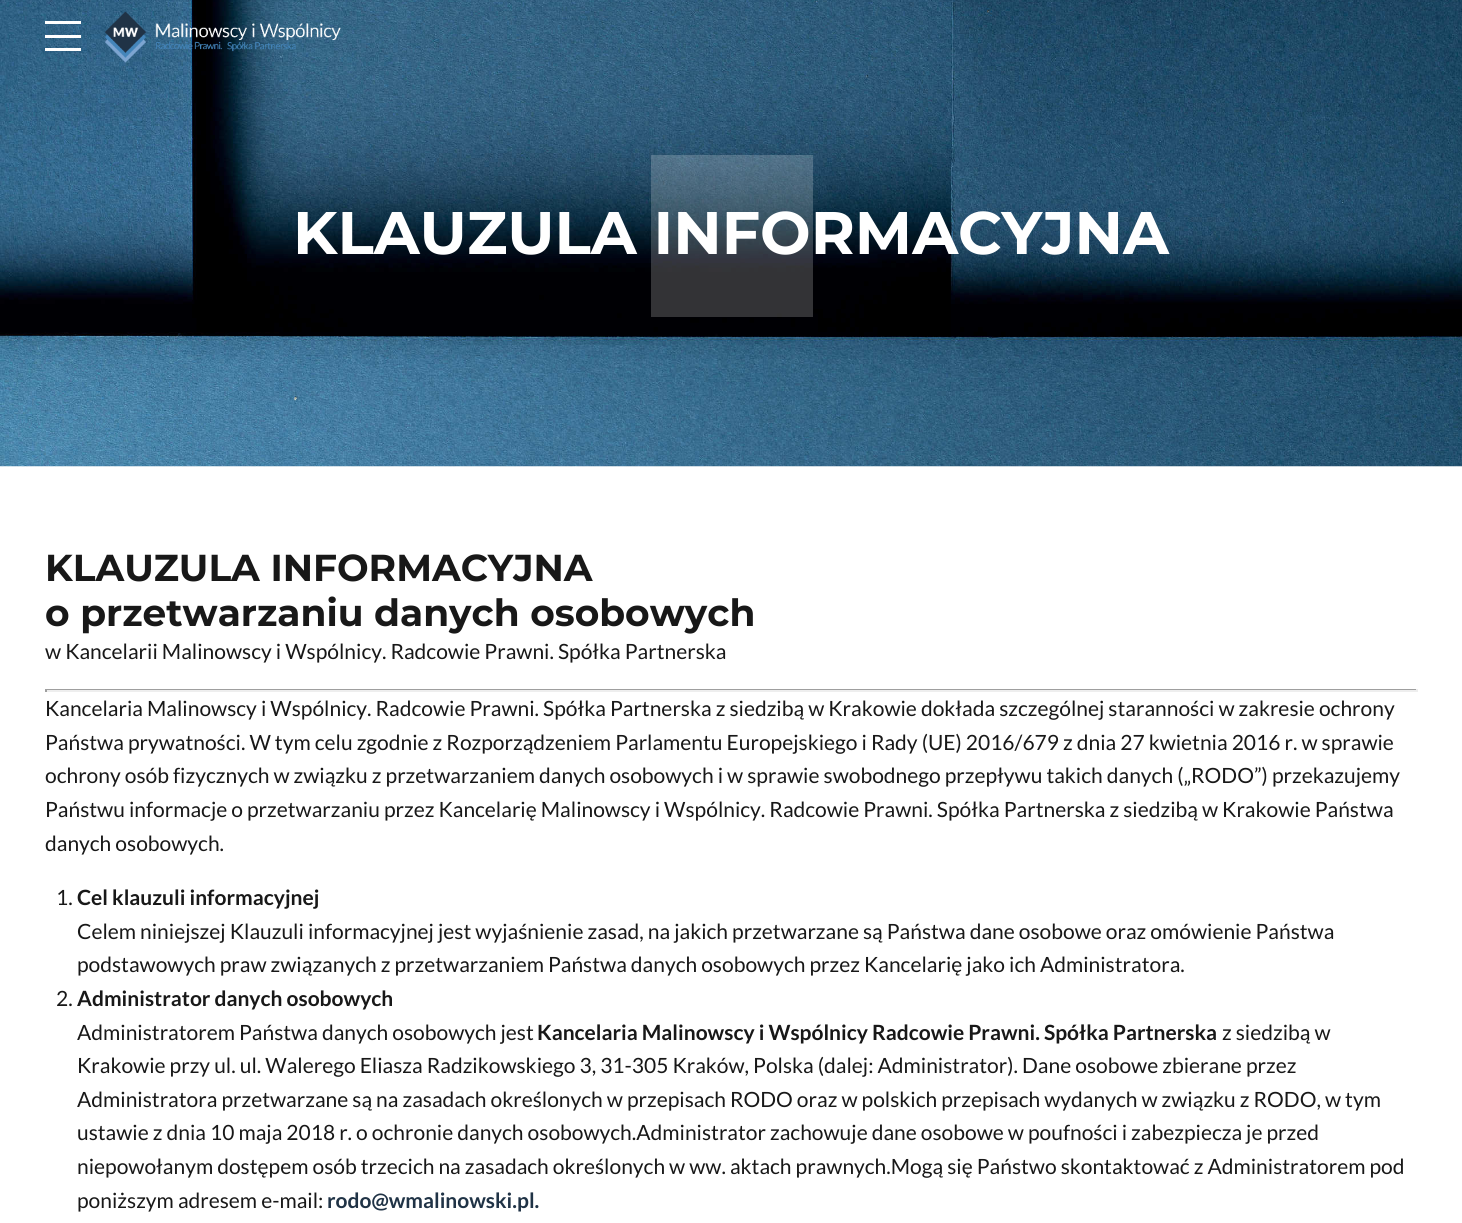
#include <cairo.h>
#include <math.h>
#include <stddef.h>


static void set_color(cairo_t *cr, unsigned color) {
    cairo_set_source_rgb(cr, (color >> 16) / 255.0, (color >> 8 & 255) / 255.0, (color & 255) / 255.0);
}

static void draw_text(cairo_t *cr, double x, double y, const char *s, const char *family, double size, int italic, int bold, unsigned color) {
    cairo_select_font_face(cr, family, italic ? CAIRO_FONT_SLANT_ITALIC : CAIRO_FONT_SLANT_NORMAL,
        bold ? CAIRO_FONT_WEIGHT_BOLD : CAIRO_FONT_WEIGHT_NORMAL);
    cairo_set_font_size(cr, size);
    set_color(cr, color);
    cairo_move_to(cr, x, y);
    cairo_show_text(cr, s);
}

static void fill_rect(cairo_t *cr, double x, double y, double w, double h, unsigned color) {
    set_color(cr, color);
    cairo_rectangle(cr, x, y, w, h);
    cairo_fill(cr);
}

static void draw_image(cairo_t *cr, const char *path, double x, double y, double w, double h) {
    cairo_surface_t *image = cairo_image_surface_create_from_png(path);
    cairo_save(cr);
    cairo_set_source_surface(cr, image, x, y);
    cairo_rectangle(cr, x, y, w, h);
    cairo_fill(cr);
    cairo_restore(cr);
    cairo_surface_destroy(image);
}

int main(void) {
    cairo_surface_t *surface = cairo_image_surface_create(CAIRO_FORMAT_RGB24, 1462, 1223);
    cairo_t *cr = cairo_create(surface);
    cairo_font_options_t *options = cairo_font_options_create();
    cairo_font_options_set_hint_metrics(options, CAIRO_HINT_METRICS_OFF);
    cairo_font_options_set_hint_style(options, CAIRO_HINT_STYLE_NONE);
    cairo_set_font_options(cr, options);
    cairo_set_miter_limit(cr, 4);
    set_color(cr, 0xFFFFFF);
    cairo_paint(cr);
    draw_image(cr, "assets/img2.png", 0, 0, 1462, 467);
    fill_rect(cr, 45, 21, 36, 3, 0xFFFFFF);
    fill_rect(cr, 45, 35, 36, 3, 0xFFFFFF);
    fill_rect(cr, 45, 48, 36, 3, 0xFFFFFF);
    draw_image(cr, "assets/img1.png", 105, 11, 236, 52);
    cairo_set_source_rgba(cr, 1, 1, 1, 0.2);
    cairo_rectangle(cr, 651, 155, 162, 162);
    cairo_fill(cr);
    draw_text(cr, 293, 254, "KLAUZULA INFORMACYJNA", "Montserrat", 60, 0, 1, 0xFFFFFF);
    draw_text(cr, 45, 581, "KLAUZULA INFORMACYJNA", "Montserrat", 37.5, 0, 1, 0x181818);
    draw_text(cr, 45, 626, "o przetwarzaniu danych osobowych", "Montserrat", 37.5, 0, 1, 0x181818);
    draw_text(cr, 45, 659, "w Kancelarii Malinowscy i Wspólnicy. Radcowie Prawni. Spółka Partnerska", "Lato", 21, 0, 0, 0x181818);
    fill_rect(cr, 45, 689, 1373, 1, 0x9F9F9F);
    fill_rect(cr, 1416, 689, 2, 3, 0xEEEEEE);
    fill_rect(cr, 45, 690, 1373, 2, 0xEEEEEE);
    fill_rect(cr, 45, 689, 2, 3, 0x9F9F9F);
    draw_text(cr, 45, 716, "Kancelaria Malinowscy i Wspólnicy. Radcowie Prawni. Spółka Partnerska z siedzibą w Krakowie dokłada szczególnej staranności w zakresie ochrony", "Lato", 21, 0, 0, 0x181818);
    draw_text(cr, 45, 750, "Państwa prywatności. W tym celu zgodnie z Rozporządzeniem Parlamentu Europejskiego i Rady (UE) 2016/679 z dnia 27 kwietnia 2016 r. w sprawie", "Lato", 21, 0, 0, 0x181818);
    draw_text(cr, 45, 783, "ochrony osób fizycznych w związku z przetwarzaniem danych osobowych i w sprawie swobodnego przepływu takich danych („RODO”) przekazujemy", "Lato", 21, 0, 0, 0x181818);
    draw_text(cr, 45, 817, "Państwu informacje o przetwarzaniu przez Kancelarię Malinowscy i Wspólnicy. Radcowie Prawni. Spółka Partnerska z siedzibą w Krakowie Państwa", "Lato", 21, 0, 0, 0x181818);
    draw_text(cr, 45, 851, "danych osobowych.", "Lato", 21, 0, 0, 0x181818);
    draw_text(cr, 56, 905, "1.", "Lato", 21, 0, 0, 0x181818);
    draw_text(cr, 77, 905, "Cel klauzuli informacyjnej", "Lato", 21, 0, 1, 0x181818);
    draw_text(cr, 77, 939, "Celem niniejszej Klauzuli informacyjnej jest wyjaśnienie zasad, na jakich przetwarzane są Państwa dane osobowe oraz omówienie Państwa", "Lato", 21, 0, 0, 0x181818);
    draw_text(cr, 77, 972, "podstawowych praw związanych z przetwarzaniem Państwa danych osobowych przez Kancelarię jako ich Administratora.", "Lato", 21, 0, 0, 0x181818);
    draw_text(cr, 56, 1006, "2.", "Lato", 21, 0, 0, 0x181818);
    draw_text(cr, 77, 1006, "Administrator danych osobowych", "Lato", 21, 0, 1, 0x181818);
    draw_text(cr, 77, 1040, "Administratorem Państwa danych osobowych jest", "Lato", 21, 0, 0, 0x181818);
    draw_text(cr, 537, 1040, "Kancelaria Malinowscy i Wspólnicy Radcowie Prawni. Spółka Partnerska", "Lato", 21, 0, 1, 0x181818);
    draw_text(cr, 1222, 1040, "z siedzibą w", "Lato", 21, 0, 0, 0x181818);
    draw_text(cr, 77, 1073, "Krakowie przy ul. ul. Walerego Eliasza Radzikowskiego 3, 31-305 Kraków, Polska (dalej: Administrator). Dane osobowe zbierane przez", "Lato", 21, 0, 0, 0x181818);
    draw_text(cr, 77, 1107, "Administratora przetwarzane są na zasadach określonych w przepisach RODO oraz w polskich przepisach wydanych w związku z RODO, w tym", "Lato", 21, 0, 0, 0x181818);
    draw_text(cr, 77, 1140, "ustawie z dnia 10 maja 2018 r. o ochronie danych osobowych.Administrator zachowuje dane osobowe w poufności i zabezpiecza je przed", "Lato", 21, 0, 0, 0x181818);
    draw_text(cr, 77, 1174, "niepowołanym dostępem osób trzecich na zasadach określonych w ww. aktach prawnych.Mogą się Państwo skontaktować z Administratorem pod", "Lato", 21, 0, 0, 0x181818);
    draw_text(cr, 77, 1208, "poniższym adresem e-mail:", "Lato", 21, 0, 0, 0x181818);
    draw_text(cr, 327, 1208, "rodo@wmalinowski.pl.", "Lato", 21, 0, 1, 0x203346);
    cairo_surface_write_to_png(surface, "output.png");
    cairo_font_options_destroy(options);
    cairo_destroy(cr);
    cairo_surface_destroy(surface);
    return 0;
}
